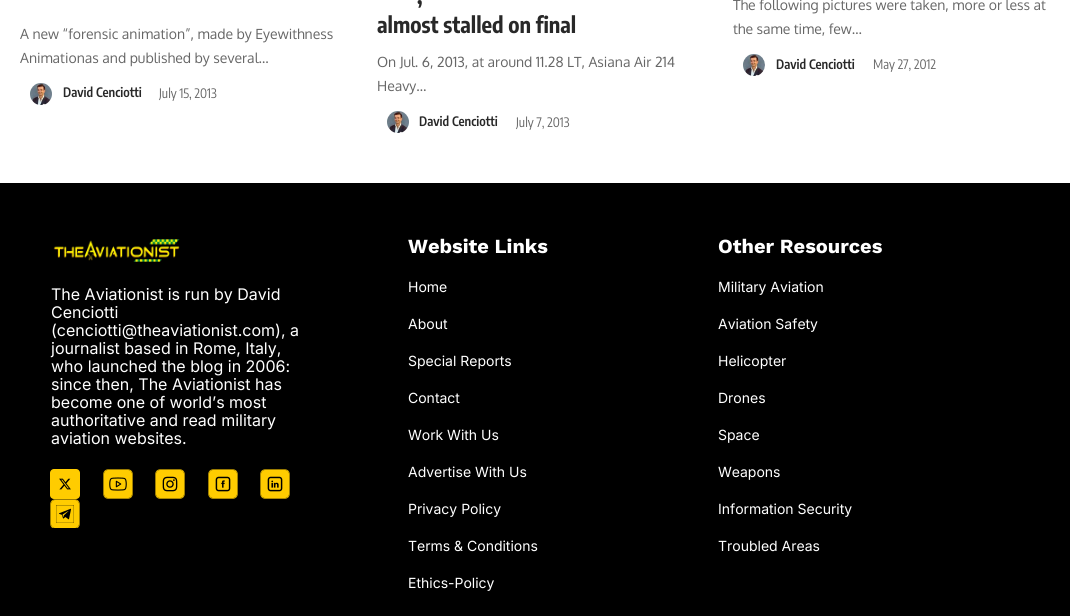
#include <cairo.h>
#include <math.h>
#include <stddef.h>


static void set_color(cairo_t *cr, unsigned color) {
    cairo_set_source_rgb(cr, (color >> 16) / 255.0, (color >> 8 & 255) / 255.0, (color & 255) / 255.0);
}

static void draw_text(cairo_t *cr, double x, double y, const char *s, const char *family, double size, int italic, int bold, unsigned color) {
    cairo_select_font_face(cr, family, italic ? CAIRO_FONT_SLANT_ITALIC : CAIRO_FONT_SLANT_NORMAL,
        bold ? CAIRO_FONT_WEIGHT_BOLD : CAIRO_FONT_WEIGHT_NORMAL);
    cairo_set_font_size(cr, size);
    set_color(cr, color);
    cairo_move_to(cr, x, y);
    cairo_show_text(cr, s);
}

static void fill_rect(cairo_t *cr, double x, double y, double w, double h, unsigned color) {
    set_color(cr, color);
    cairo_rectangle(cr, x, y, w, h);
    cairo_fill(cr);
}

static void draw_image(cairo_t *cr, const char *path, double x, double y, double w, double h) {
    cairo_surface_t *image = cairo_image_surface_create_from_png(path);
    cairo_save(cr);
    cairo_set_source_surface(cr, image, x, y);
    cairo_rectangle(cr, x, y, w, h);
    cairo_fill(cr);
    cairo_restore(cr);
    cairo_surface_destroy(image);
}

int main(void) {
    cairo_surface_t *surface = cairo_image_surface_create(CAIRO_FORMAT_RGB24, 1070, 616);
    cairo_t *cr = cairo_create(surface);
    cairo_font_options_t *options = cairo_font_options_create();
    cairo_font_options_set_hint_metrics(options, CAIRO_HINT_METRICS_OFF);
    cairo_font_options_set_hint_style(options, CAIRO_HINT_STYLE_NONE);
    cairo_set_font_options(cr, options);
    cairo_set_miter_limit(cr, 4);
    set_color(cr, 0xFFFFFF);
    cairo_paint(cr);
    draw_text(cr, 20, 39, "A new “forensic animation”, made by Eyewithness", "Oxygen", 14, 0, 0, 0x666666);
    draw_text(cr, 20, 63, "Animationas and published by several…", "Oxygen", 14, 0, 0, 0x666666);
    draw_image(cr, "assets/img1.png", 30, 83, 22, 22);
    draw_text(cr, 63, 97, "David Cenciotti", "Encode Sans Condensed SemiBold", 13, 0, 0, 0x282828);
    draw_text(cr, 159, 98, "July 15, 2013", "Encode Sans Condensed", 13, 0, 0, 0x666666);
    draw_text(cr, 417, 4, ",", "Encode Sans Condensed", 22, 0, 1, 0x282828);
    draw_text(cr, 377, 33, "almost stalled on final", "Encode Sans Condensed", 22, 0, 1, 0x282828);
    draw_text(cr, 377, 67, "On Jul. 6, 2013, at around 11.28 LT, Asiana Air 214", "Oxygen", 14, 0, 0, 0x666666);
    draw_text(cr, 377, 91, "Heavy…", "Oxygen", 14, 0, 0, 0x666666);
    draw_image(cr, "assets/img1.png", 387, 111, 22, 22);
    draw_text(cr, 419, 126, "David Cenciotti", "Encode Sans Condensed SemiBold", 13, 0, 0, 0x282828);
    draw_text(cr, 516, 127, "July 7, 2013", "Encode Sans Condensed", 13, 0, 0, 0x666666);
    draw_text(cr, 733, 10, "The following pictures were taken, more or less at", "Oxygen", 14, 0, 0, 0x666666);
    draw_text(cr, 733, 34, "the same time, few…", "Oxygen", 14, 0, 0, 0x666666);
    draw_image(cr, "assets/img2.png", 743, 54, 22, 22);
    draw_text(cr, 776, 69, "David Cenciotti", "Encode Sans Condensed SemiBold", 13, 0, 0, 0x282828);
    draw_text(cr, 873, 69, "May 27, 2012", "Encode Sans Condensed", 13, 0, 0, 0x666666);
    fill_rect(cr, 0, 183, 1070, 433, 0x000000);
    draw_image(cr, "assets/img3.png", 53, 239, 127, 23);
    draw_text(cr, 51, 300, "The Aviationist is run by David", "Inter", 16, 0, 0, 0xFFFFFF);
    draw_text(cr, 51, 318, "Cenciotti", "Inter", 16, 0, 0, 0xFFFFFF);
    draw_text(cr, 51, 336, "(cenciotti@theaviationist.com), a", "Inter", 16, 0, 0, 0xFFFFFF);
    draw_text(cr, 51, 354, "journalist based in Rome, Italy,", "Inter", 16, 0, 0, 0xFFFFFF);
    draw_text(cr, 51, 372, "who launched the blog in 2006:", "Inter", 16, 0, 0, 0xFFFFFF);
    draw_text(cr, 51, 390, "since then, The Aviationist has", "Inter", 16, 0, 0, 0xFFFFFF);
    draw_text(cr, 51, 408, "become one of world’s most", "Inter", 16, 0, 0, 0xFFFFFF);
    draw_text(cr, 51, 426, "authoritative and read military", "Inter", 16, 0, 0, 0xFFFFFF);
    draw_text(cr, 51, 444, "aviation websites.", "Inter", 16, 0, 0, 0xFFFFFF);
    draw_image(cr, "assets/img4.png", 50, 469, 30, 30);
    draw_image(cr, "assets/img5.png", 103, 469, 30, 30);
    draw_image(cr, "assets/img6.png", 155, 469, 30, 30);
    draw_image(cr, "assets/img7.png", 208, 469, 30, 30);
    draw_image(cr, "assets/img8.png", 260, 469, 30, 30);
    draw_image(cr, "assets/img9.png", 50, 499, 30, 29);
    draw_text(cr, 408, 253, "Website Links", "Work Sans", 20, 0, 1, 0xFFFFFF);
    draw_text(cr, 408, 292, "Home", "Inter", 14, 0, 0, 0xFFFFFF);
    draw_text(cr, 408, 329, "About", "Inter", 14, 0, 0, 0xFFFFFF);
    draw_text(cr, 408, 366, "Special Reports", "Inter", 14, 0, 0, 0xFFFFFF);
    draw_text(cr, 408, 403, "Contact", "Inter", 14, 0, 0, 0xFFFFFF);
    draw_text(cr, 408, 440, "Work With Us", "Inter", 14, 0, 0, 0xFFFFFF);
    draw_text(cr, 408, 477, "Advertise With Us", "Inter", 14, 0, 0, 0xFFFFFF);
    draw_text(cr, 408, 514, "Privacy Policy", "Inter", 14, 0, 0, 0xFFFFFF);
    draw_text(cr, 408, 551, "Terms & Conditions", "Inter", 14, 0, 0, 0xFFFFFF);
    draw_text(cr, 408, 588, "Ethics-Policy", "Inter", 14, 0, 0, 0xFFFFFF);
    draw_text(cr, 718, 253, "Other Resources", "Work Sans", 20, 0, 1, 0xFFFFFF);
    draw_text(cr, 718, 292, "Military Aviation", "Inter", 14, 0, 0, 0xFFFFFF);
    draw_text(cr, 718, 329, "Aviation Safety", "Inter", 14, 0, 0, 0xFFFFFF);
    draw_text(cr, 718, 366, "Helicopter", "Inter", 14, 0, 0, 0xFFFFFF);
    draw_text(cr, 718, 403, "Drones", "Inter", 14, 0, 0, 0xFFFFFF);
    draw_text(cr, 718, 440, "Space", "Inter", 14, 0, 0, 0xFFFFFF);
    draw_text(cr, 718, 477, "Weapons", "Inter", 14, 0, 0, 0xFFFFFF);
    draw_text(cr, 718, 514, "Information Security", "Inter", 14, 0, 0, 0xFFFFFF);
    draw_text(cr, 718, 551, "Troubled Areas", "Inter", 14, 0, 0, 0xFFFFFF);
    cairo_surface_write_to_png(surface, "output.png");
    cairo_font_options_destroy(options);
    cairo_destroy(cr);
    cairo_surface_destroy(surface);
    return 0;
}
